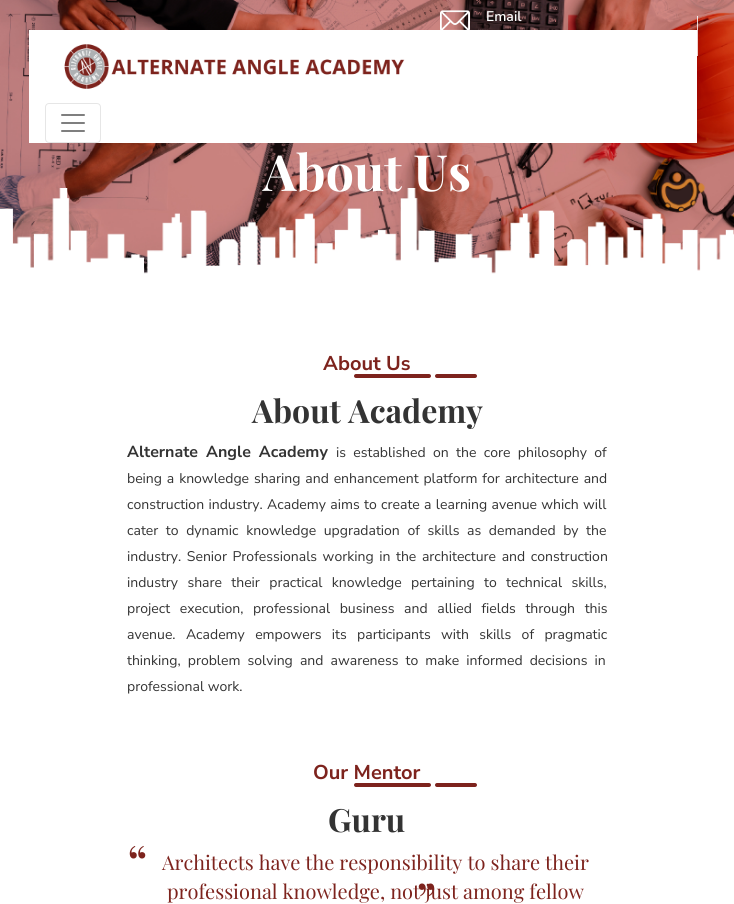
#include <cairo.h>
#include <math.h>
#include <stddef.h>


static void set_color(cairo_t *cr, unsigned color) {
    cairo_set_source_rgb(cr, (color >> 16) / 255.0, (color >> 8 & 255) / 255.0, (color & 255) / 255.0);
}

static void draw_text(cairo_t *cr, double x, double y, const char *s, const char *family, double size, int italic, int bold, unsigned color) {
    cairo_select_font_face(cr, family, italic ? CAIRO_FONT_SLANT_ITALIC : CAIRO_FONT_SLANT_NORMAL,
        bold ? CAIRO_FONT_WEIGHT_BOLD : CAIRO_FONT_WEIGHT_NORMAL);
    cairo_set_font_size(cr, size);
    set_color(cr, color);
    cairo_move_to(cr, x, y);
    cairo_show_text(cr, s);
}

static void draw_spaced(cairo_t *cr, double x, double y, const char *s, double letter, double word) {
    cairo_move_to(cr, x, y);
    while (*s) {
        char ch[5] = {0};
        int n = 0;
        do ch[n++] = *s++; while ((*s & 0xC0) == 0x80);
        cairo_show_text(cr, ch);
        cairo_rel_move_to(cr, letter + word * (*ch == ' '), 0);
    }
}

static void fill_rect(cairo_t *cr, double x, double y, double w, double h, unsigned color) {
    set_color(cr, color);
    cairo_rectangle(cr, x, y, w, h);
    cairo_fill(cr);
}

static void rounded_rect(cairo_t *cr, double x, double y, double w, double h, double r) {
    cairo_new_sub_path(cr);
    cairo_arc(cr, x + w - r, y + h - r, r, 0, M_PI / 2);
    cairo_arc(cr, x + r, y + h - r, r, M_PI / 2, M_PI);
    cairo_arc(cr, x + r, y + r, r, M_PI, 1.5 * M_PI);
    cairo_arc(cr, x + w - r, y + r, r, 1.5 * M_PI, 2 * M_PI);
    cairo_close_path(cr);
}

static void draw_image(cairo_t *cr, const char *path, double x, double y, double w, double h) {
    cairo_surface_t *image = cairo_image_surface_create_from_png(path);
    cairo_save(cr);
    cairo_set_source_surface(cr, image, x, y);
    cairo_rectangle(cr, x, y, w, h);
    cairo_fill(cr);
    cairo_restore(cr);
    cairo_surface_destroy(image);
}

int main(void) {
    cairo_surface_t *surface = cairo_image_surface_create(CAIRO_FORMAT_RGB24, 734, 904);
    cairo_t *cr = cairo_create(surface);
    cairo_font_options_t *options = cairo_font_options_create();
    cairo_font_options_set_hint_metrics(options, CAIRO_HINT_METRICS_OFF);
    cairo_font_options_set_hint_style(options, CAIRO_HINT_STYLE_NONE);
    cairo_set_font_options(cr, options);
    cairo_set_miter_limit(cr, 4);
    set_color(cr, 0xFFFFFF);
    cairo_paint(cr);
    draw_image(cr, "assets/img1.png", 0, 0, 734, 274);
    draw_image(cr, "assets/img2.png", 440, 10, 30, 20);
    draw_text(cr, 486, 21, "Email", "Nunito Sans SemiBold", 14, 0, 0, 0xFFFFFF);
    fill_rect(cr, 697, 16, 1, 1, 0xEEEEEE);
    cairo_set_source_rgba(cr, 1, 1, 1, 0.8);
    cairo_rectangle(cr, 697, 17, 1, 39);
    cairo_fill(cr);
    fill_rect(cr, 29, 30, 668, 113, 0xFFFFFF);
    draw_image(cr, "assets/img3.png", 64, 44, 341, 45);
    rounded_rect(cr, 45.5, 103.5, 55, 39, 3.5);
    set_color(cr, 0xE6E6E6);
    cairo_set_line_width(cr, 1);
    cairo_stroke(cr);
    draw_image(cr, "assets/img4.png", 61, 114, 24, 18);
    draw_text(cr, 263, 191, "About Us", "Playfair Display", 50, 0, 1, 0xFFFFFF);
    draw_text(cr, 323, 370, "About Us", "Nunito Sans", 20, 0, 1, 0x7D231D);
    rounded_rect(cr, 354, 374, 77, 4, 2);
    cairo_fill(cr);
    rounded_rect(cr, 435, 374, 42, 4, 2);
    cairo_fill(cr);
    draw_text(cr, 252, 423, "About Academy", "Playfair Display", 32, 0, 1, 0x333333);
    cairo_select_font_face(cr, "Nunito Sans", CAIRO_FONT_SLANT_NORMAL, CAIRO_FONT_WEIGHT_BOLD);
    cairo_set_font_size(cr, 16);
    draw_spaced(cr, 127, 457, "Alternate Angle Academy", 0, 3.75);
    cairo_select_font_face(cr, "Nunito Sans", CAIRO_FONT_SLANT_NORMAL, CAIRO_FONT_WEIGHT_NORMAL);
    cairo_set_font_size(cr, 14);
    draw_spaced(cr, 336, 457, "is established on the core philosophy of", 0, 3.75);
    draw_spaced(cr, 127, 483, "being a knowledge sharing and enhancement platform for architecture and", 0, 1.25);
    draw_spaced(cr, 127, 509, "construction industry. Academy aims to create a learning avenue which will", 0, 0.75);
    draw_spaced(cr, 127, 535, "cater to dynamic knowledge upgradation of skills as demanded by the", 0, 4);
    draw_spaced(cr, 127, 561, "industry. Senior Professionals working in the architecture and construction", 0, 2);
    draw_spaced(cr, 127, 587, "industry share their practical knowledge pertaining to technical skills,", 0, 5.75);
    draw_spaced(cr, 127, 613, "project execution, professional business and allied fields through this", 0, 6);
    draw_spaced(cr, 127, 639, "avenue. Academy empowers its participants with skills of pragmatic", 0, 6.75);
    draw_spaced(cr, 127, 665, "thinking, problem solving and awareness to make informed decisions in", 0, 3.5);
    draw_text(cr, 127, 691, "professional work.", "Nunito Sans", 14, 0, 0, 0x333333);
    draw_text(cr, 313, 779, "Our Mentor", "Nunito Sans", 20, 0, 1, 0x7D231D);
    rounded_rect(cr, 354, 783, 77, 4, 2);
    cairo_fill(cr);
    rounded_rect(cr, 435, 783, 42, 4, 2);
    cairo_fill(cr);
    draw_text(cr, 328, 832, "Guru", "Playfair Display", 32, 0, 1, 0x333333);
    draw_text(cr, 127, 882, "“", "Playfair Display", 50, 0, 0, 0x7D231D);
    draw_text(cr, 162, 870, "Architects have the responsibility to share their", "Playfair Display", 20, 0, 0, 0x7D231D);
    draw_text(cr, 167, 899, "professional knowledge, not just among fellow", "Playfair Display", 20, 0, 0, 0x7D231D);
    cairo_save(cr);
    cairo_translate(cr, 437, 860);
    cairo_rotate(cr, 180 * M_PI / 180);
    draw_text(cr, 0, 0, "“", "Playfair Display", 50, 0, 0, 0x7D231D);
    cairo_restore(cr);
    cairo_surface_write_to_png(surface, "output.png");
    cairo_font_options_destroy(options);
    cairo_destroy(cr);
    cairo_surface_destroy(surface);
    return 0;
}
